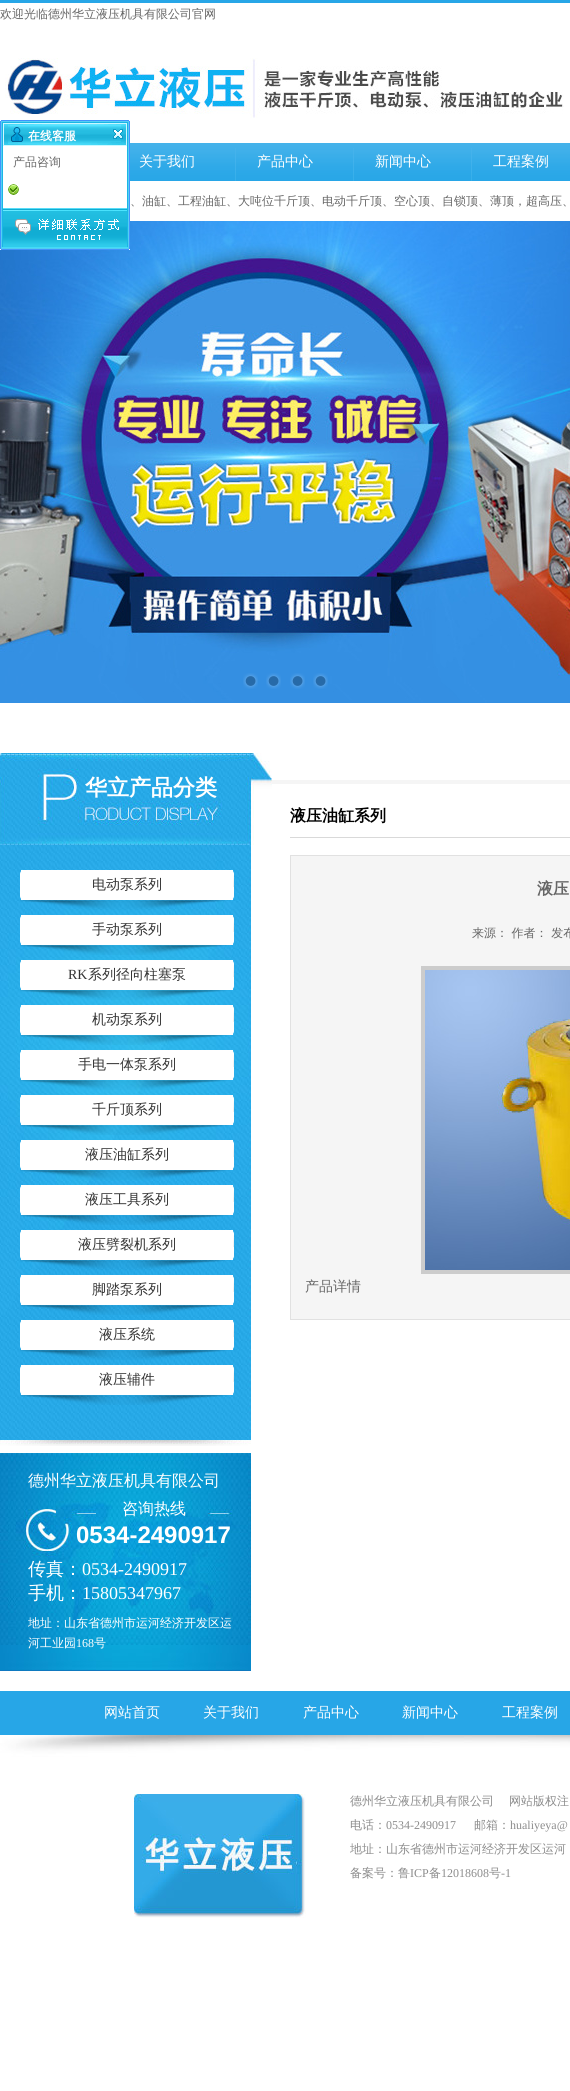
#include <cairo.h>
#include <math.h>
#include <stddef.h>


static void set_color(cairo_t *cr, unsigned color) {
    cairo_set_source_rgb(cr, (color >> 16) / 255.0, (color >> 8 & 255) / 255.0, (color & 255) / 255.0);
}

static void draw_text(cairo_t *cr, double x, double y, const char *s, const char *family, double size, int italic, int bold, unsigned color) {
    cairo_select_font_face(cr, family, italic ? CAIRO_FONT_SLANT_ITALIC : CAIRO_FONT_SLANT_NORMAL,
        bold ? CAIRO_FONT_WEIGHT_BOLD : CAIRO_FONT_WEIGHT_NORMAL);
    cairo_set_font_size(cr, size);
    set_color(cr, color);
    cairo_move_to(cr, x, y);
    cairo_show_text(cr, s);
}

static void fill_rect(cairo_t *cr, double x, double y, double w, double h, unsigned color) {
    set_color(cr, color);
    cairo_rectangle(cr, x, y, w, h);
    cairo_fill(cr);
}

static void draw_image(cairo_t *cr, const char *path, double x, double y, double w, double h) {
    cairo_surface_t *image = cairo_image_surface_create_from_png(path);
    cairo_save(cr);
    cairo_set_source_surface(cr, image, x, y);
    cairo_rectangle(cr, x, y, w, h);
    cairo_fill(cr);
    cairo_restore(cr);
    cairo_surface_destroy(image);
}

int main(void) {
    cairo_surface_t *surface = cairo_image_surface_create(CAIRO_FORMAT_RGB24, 570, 2091);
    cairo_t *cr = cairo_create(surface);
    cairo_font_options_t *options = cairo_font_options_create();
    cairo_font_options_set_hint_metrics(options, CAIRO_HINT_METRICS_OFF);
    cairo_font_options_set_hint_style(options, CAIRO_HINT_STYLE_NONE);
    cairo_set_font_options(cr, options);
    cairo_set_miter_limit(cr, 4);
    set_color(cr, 0xFFFFFF);
    cairo_paint(cr);
    draw_image(cr, "assets/img1.png", 0, 0, 570, 181);
    draw_text(cr, 0, 18, "欢迎光临德州华立液压机具有限公司官网", "WenQuanYi Zen Hei Medium", 12, 0, 0, 0x666666);
    draw_image(cr, "assets/img2.png", 5, 58, 559, 60);
    draw_image(cr, "assets/img3.png", 235, 148, 1, 33);
    draw_text(cr, 139, 166, "关于我们", "WenQuanYi Zen Hei Medium", 14, 0, 0, 0xFFFFFF);
    draw_image(cr, "assets/img3.png", 353, 148, 1, 33);
    draw_text(cr, 257, 166, "产品中心", "WenQuanYi Zen Hei Medium", 14, 0, 0, 0xFFFFFF);
    draw_image(cr, "assets/img3.png", 471, 148, 1, 33);
    draw_text(cr, 375, 166, "新闻中心", "WenQuanYi Zen Hei Medium", 14, 0, 0, 0xFFFFFF);
    draw_text(cr, 493, 166, "工程案例", "WenQuanYi Zen Hei Medium", 14, 0, 0, 0xFFFFFF);
    draw_text(cr, 130, 205, "、油缸、工程油缸、大吨位千斤顶、电动千斤顶、空心顶、自锁顶、薄顶，超高压、", "WenQuanYi Zen Hei Medium", 12, 0, 0, 0x666666);
    draw_image(cr, "assets/img4.png", 0, 120, 130, 26);
    draw_text(cr, 28, 140, "在线客服", "WenQuanYi Zen Hei", 12, 0, 1, 0xFFFFFF);
    draw_image(cr, "assets/img5.png", 113, 129, 10, 10);
    draw_image(cr, "assets/img6.png", 0, 146, 130, 3);
    draw_image(cr, "assets/img7.png", 0, 149, 130, 56);
    draw_text(cr, 13, 166, "产品咨询", "WenQuanYi Zen Hei Medium", 12, 0, 0, 0x666666);
    draw_image(cr, "assets/img8.png", 8, 184, 11, 11);
    draw_image(cr, "assets/img6.png", 0, 205, 130, 3);
    draw_image(cr, "assets/img10.png", 0, 221, 570, 482);
    draw_image(cr, "assets/img9.png", 0, 208, 130, 42);
    draw_image(cr, "assets/img11.png", 243, 673, 15, 16);
    draw_image(cr, "assets/img11.png", 266, 673, 15, 16);
    draw_image(cr, "assets/img11.png", 290, 673, 15, 16);
    draw_image(cr, "assets/img11.png", 313, 673, 15, 16);
    fill_rect(cr, 272, 780, 298, 4, 0xF5F5F5);
    draw_image(cr, "assets/img12.png", 0, 1440, 251, 6);
    draw_image(cr, "assets/img13.png", 0, 753, 272, 92);
    draw_text(cr, 85, 795, "华立产品分类", "WenQuanYi Zen Hei", 22, 0, 1, 0xFFFFFF);
    draw_image(cr, "assets/img14.png", 0, 845, 251, 595);
    draw_image(cr, "assets/img15.png", 20, 870, 214, 40);
    draw_text(cr, 92, 889, "电动泵系列", "WenQuanYi Zen Hei Medium", 14, 0, 0, 0x333333);
    draw_image(cr, "assets/img16.png", 20, 915, 214, 40);
    draw_text(cr, 92, 934, "手动泵系列", "WenQuanYi Zen Hei Medium", 14, 0, 0, 0x333333);
    draw_image(cr, "assets/img17.png", 20, 960, 214, 40);
    draw_text(cr, 68, 979, "RK", "Liberation Serif", 14, 0, 0, 0x333333);
    draw_text(cr, 88, 979, "系列径向柱塞泵", "WenQuanYi Zen Hei Medium", 14, 0, 0, 0x333333);
    draw_image(cr, "assets/img18.png", 20, 1005, 214, 40);
    draw_text(cr, 92, 1024, "机动泵系列", "WenQuanYi Zen Hei Medium", 14, 0, 0, 0x333333);
    draw_image(cr, "assets/img19.png", 20, 1050, 214, 40);
    draw_text(cr, 78, 1069, "手电一体泵系列", "WenQuanYi Zen Hei Medium", 14, 0, 0, 0x333333);
    draw_image(cr, "assets/img20.png", 20, 1095, 214, 40);
    draw_text(cr, 92, 1114, "千斤顶系列", "WenQuanYi Zen Hei Medium", 14, 0, 0, 0x333333);
    draw_image(cr, "assets/img21.png", 20, 1140, 214, 40);
    draw_text(cr, 85, 1159, "液压油缸系列", "WenQuanYi Zen Hei Medium", 14, 0, 0, 0x333333);
    draw_image(cr, "assets/img22.png", 20, 1185, 214, 40);
    draw_text(cr, 85, 1204, "液压工具系列", "WenQuanYi Zen Hei Medium", 14, 0, 0, 0x333333);
    draw_image(cr, "assets/img23.png", 20, 1230, 214, 40);
    draw_text(cr, 78, 1249, "液压劈裂机系列", "WenQuanYi Zen Hei Medium", 14, 0, 0, 0x333333);
    draw_image(cr, "assets/img24.png", 20, 1275, 214, 40);
    draw_text(cr, 92, 1294, "脚踏泵系列", "WenQuanYi Zen Hei Medium", 14, 0, 0, 0x333333);
    draw_image(cr, "assets/img25.png", 20, 1320, 214, 40);
    draw_text(cr, 99, 1339, "液压系统", "WenQuanYi Zen Hei Medium", 14, 0, 0, 0x333333);
    draw_image(cr, "assets/img26.png", 20, 1365, 214, 40);
    draw_text(cr, 99, 1384, "液压辅件", "WenQuanYi Zen Hei Medium", 14, 0, 0, 0x333333);
    draw_image(cr, "assets/img27.png", 0, 1453, 251, 218);
    draw_text(cr, 28, 1486, "德州华立液压机具有限公司", "WenQuanYi Zen Hei Medium", 16, 0, 0, 0xFFFFFF);
    draw_text(cr, 122, 1514, "咨询热线", "WenQuanYi Zen Hei Medium", 16, 0, 0, 0xFFFFFF);
    draw_text(cr, 76, 1543, "0534-2490917", "Liberation Sans", 24, 0, 1, 0xFFFFFF);
    draw_text(cr, 28, 1575, "传真：", "WenQuanYi Zen Hei Medium", 18, 0, 0, 0xFFFFFF);
    draw_text(cr, 82, 1575, "0534-2490917", "Liberation Serif", 18, 0, 0, 0xFFFFFF);
    draw_text(cr, 28, 1599, "手机：", "WenQuanYi Zen Hei Medium", 18, 0, 0, 0xFFFFFF);
    draw_text(cr, 82, 1599, "15805347967", "Liberation Serif", 18, 0, 0, 0xFFFFFF);
    draw_text(cr, 28, 1627, "地址：山东省德州市运河经济开发区运", "WenQuanYi Zen Hei Medium", 12, 0, 0, 0xFFFFFF);
    draw_text(cr, 28, 1647, "河工业园", "WenQuanYi Zen Hei Medium", 12, 0, 0, 0xFFFFFF);
    draw_text(cr, 76, 1647, "168", "Liberation Serif", 12, 0, 0, 0xFFFFFF);
    draw_text(cr, 94, 1647, "号", "WenQuanYi Zen Hei Medium", 12, 0, 0, 0xFFFFFF);
    fill_rect(cr, 290, 837, 280, 1, 0xD9D9D9);
    draw_text(cr, 290, 821, "液压油缸系列", "WenQuanYi Zen Hei", 16, 0, 1, 0x000000);
    set_color(cr, 0xF5F5F5);
    cairo_rectangle(cr, 290.5, 855.5, 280, 464);
    cairo_fill_preserve(cr);
    set_color(cr, 0xE1E1E1);
    cairo_set_line_width(cr, 1);
    cairo_stroke(cr);
    draw_text(cr, 537, 894, "液压", "WenQuanYi Zen Hei", 16, 0, 1, 0x666666);
    draw_text(cr, 472, 937, "来源： 作者： 发布", "WenQuanYi Zen Hei Medium", 12, 0, 0, 0x666666);
    cairo_rectangle(cr, 423, 968, 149, 304);
    set_color(cr, 0xCCCCCC);
    cairo_set_line_width(cr, 4);
    cairo_stroke(cr);
    draw_image(cr, "assets/img28.png", 425, 970, 145, 300);
    draw_text(cr, 305, 1291, "产品详情", "WenQuanYi Zen Hei Medium", 14, 0, 0, 0x666666);
    fill_rect(cr, 0, 1691, 570, 44, 0x27A6E7);
    draw_image(cr, "assets/img29.png", 0, 1735, 570, 22);
    draw_text(cr, 104, 1717, "网站首页", "WenQuanYi Zen Hei Medium", 14, 0, 0, 0xFFFFFF);
    draw_text(cr, 203, 1717, "关于我们", "WenQuanYi Zen Hei Medium", 14, 0, 0, 0xFFFFFF);
    draw_text(cr, 303, 1717, "产品中心", "WenQuanYi Zen Hei Medium", 14, 0, 0, 0xFFFFFF);
    draw_text(cr, 402, 1717, "新闻中心", "WenQuanYi Zen Hei Medium", 14, 0, 0, 0xFFFFFF);
    draw_text(cr, 502, 1717, "工程案例", "WenQuanYi Zen Hei Medium", 14, 0, 0, 0xFFFFFF);
    draw_image(cr, "assets/img30.png", 134, 1794, 172, 124);
    draw_text(cr, 350, 1805, "德州华立液压机具有限公司", "WenQuanYi Zen Hei Medium", 12, 0, 0, 0x8C8C8C);
    draw_text(cr, 509, 1805, "网站版权注", "WenQuanYi Zen Hei Medium", 12, 0, 0, 0x8C8C8C);
    draw_text(cr, 350, 1829, "电话：", "WenQuanYi Zen Hei Medium", 12, 0, 0, 0x8C8C8C);
    draw_text(cr, 386, 1829, "0534-2490917", "Liberation Serif", 12, 0, 0, 0x8C8C8C);
    draw_text(cr, 474, 1829, "邮箱：", "WenQuanYi Zen Hei Medium", 12, 0, 0, 0x8C8C8C);
    draw_text(cr, 510, 1829, "hualiyeya@", "Liberation Serif", 12, 0, 0, 0x8C8C8C);
    draw_text(cr, 350, 1853, "地址：山东省德州市运河经济开发区运河", "WenQuanYi Zen Hei Medium", 12, 0, 0, 0x8C8C8C);
    draw_text(cr, 350, 1877, "备案号：鲁", "WenQuanYi Zen Hei Medium", 12, 0, 0, 0x8C8C8C);
    draw_text(cr, 410, 1877, "ICP", "Liberation Serif", 12, 0, 0, 0x8C8C8C);
    draw_text(cr, 429, 1877, "备", "WenQuanYi Zen Hei Medium", 12, 0, 0, 0x8C8C8C);
    draw_text(cr, 441, 1877, "12018608", "Liberation Serif", 12, 0, 0, 0x8C8C8C);
    draw_text(cr, 489, 1877, "号", "WenQuanYi Zen Hei Medium", 12, 0, 0, 0x8C8C8C);
    draw_text(cr, 501, 1877, "-1", "Liberation Serif", 12, 0, 0, 0x8C8C8C);
    cairo_surface_write_to_png(surface, "output.png");
    cairo_font_options_destroy(options);
    cairo_destroy(cr);
    cairo_surface_destroy(surface);
    return 0;
}
